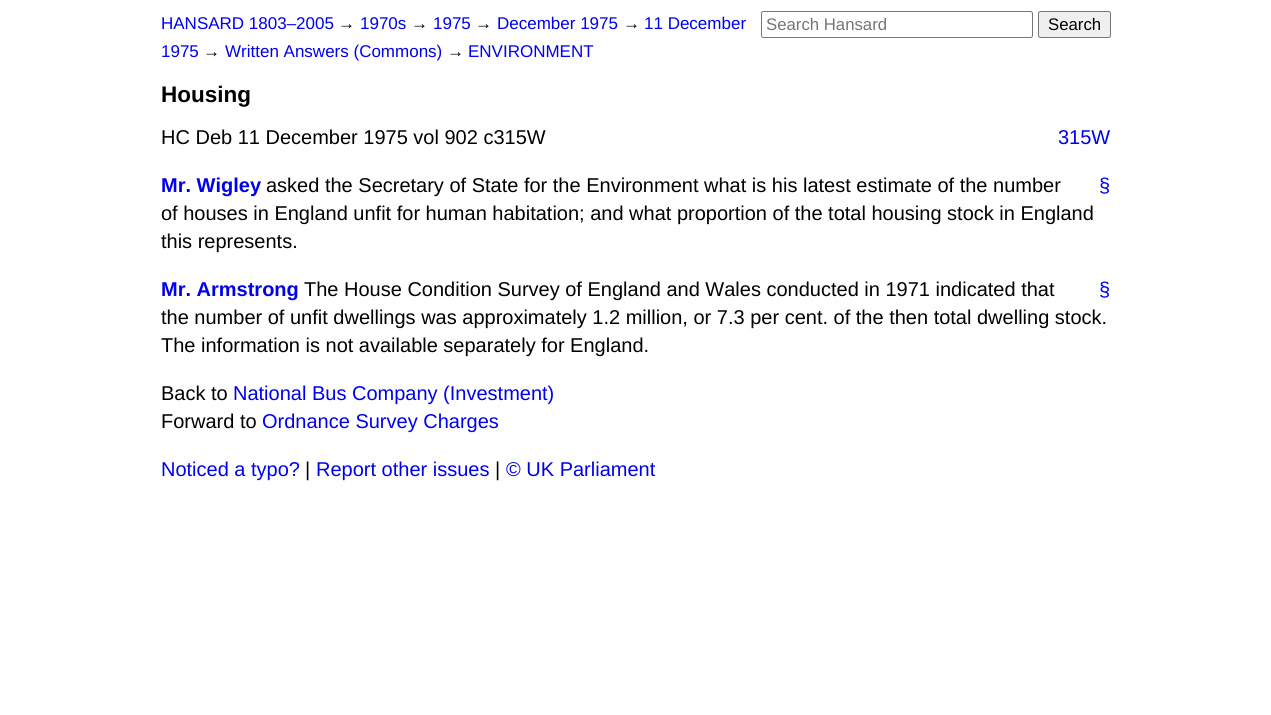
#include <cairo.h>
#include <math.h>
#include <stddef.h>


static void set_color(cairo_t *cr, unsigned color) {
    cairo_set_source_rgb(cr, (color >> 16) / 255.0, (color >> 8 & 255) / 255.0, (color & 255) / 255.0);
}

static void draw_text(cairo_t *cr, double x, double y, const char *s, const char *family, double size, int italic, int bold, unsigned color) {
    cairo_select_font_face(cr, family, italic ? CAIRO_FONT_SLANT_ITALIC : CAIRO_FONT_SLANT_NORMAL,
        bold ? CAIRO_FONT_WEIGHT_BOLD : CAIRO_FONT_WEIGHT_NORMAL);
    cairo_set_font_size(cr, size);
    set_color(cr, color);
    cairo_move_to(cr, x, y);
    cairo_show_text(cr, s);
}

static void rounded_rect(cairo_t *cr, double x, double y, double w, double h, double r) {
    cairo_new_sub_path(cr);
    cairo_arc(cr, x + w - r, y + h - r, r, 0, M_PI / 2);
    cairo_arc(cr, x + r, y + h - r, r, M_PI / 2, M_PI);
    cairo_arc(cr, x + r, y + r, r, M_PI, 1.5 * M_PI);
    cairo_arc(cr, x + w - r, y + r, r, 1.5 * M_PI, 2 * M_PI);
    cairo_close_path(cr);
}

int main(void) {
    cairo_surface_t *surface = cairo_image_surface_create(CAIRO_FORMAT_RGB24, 1271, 715);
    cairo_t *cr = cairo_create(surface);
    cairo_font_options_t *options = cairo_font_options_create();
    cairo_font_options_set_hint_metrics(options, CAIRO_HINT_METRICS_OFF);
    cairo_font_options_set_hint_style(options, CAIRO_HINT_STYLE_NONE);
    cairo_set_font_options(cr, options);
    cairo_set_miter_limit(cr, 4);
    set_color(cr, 0xFFFFFF);
    cairo_paint(cr);
    draw_text(cr, 161, 29, "HANSARD 1803–2005", "Liberation Sans", 17, 0, 0, 0x0000EE);
    draw_text(cr, 338, 29, "→", "Liberation Sans", 17, 0, 0, 0x000000);
    draw_text(cr, 360, 29, "1970s", "Liberation Sans", 17, 0, 0, 0x0000EE);
    draw_text(cr, 411, 29, "→", "Liberation Sans", 17, 0, 0, 0x000000);
    draw_text(cr, 433, 29, "1975", "Liberation Sans", 17, 0, 0, 0x0000EE);
    draw_text(cr, 475, 29, "→", "Liberation Sans", 17, 0, 0, 0x000000);
    draw_text(cr, 497, 29, "December 1975", "Liberation Sans", 17, 0, 0, 0x0000EE);
    draw_text(cr, 623, 29, "→", "Liberation Sans", 17, 0, 0, 0x000000);
    draw_text(cr, 644, 29, "11 December", "Liberation Sans", 17, 0, 0, 0x0000EE);
    draw_text(cr, 161, 57, "1975", "Liberation Sans", 17, 0, 0, 0x0000EE);
    draw_text(cr, 203, 57, "→", "Liberation Sans", 17, 0, 0, 0x000000);
    draw_text(cr, 225, 57, "Written Answers (Commons)", "Liberation Sans", 17, 0, 0, 0x0000EE);
    draw_text(cr, 447, 57, "→", "Liberation Sans", 17, 0, 0, 0x000000);
    draw_text(cr, 468, 57, "ENVIRONMENT", "Liberation Sans", 17, 0, 0, 0x0000EE);
    rounded_rect(cr, 761.5, 11.5, 271, 26, 2);
    set_color(cr, 0x767676);
    cairo_set_line_width(cr, 1);
    cairo_stroke(cr);
    draw_text(cr, 766, 30, "Search Hansard", "Liberation Sans", 16.75, 0, 0, 0x757575);
    set_color(cr, 0xEFEFEF);
    rounded_rect(cr, 1038.5, 11.5, 72, 26, 2);
    cairo_fill_preserve(cr);
    set_color(cr, 0x767676);
    cairo_stroke(cr);
    draw_text(cr, 1048, 30, "Search", "Liberation Sans", 16.75, 0, 0, 0x000000);
    draw_text(cr, 161, 102, "Housing", "Liberation Sans", 22.5, 0, 1, 0x000000);
    draw_text(cr, 161, 144, "HC Deb 11 December 1975 vol 902 c315W", "Liberation Sans", 20, 0, 0, 0x000000);
    draw_text(cr, 1058, 144, "315W", "Liberation Sans", 20, 0, 0, 0x0000EE);
    draw_text(cr, 161, 192, "Mr. Wigley", "Liberation Sans", 20, 0, 1, 0x0000EE);
    draw_text(cr, 266, 192, "asked the Secretary of State for the Environment what is his latest estimate of the number", "Liberation Sans", 20, 0, 0, 0x000000);
    draw_text(cr, 1099, 192, "§", "Liberation Sans", 20, 0, 0, 0x0000EE);
    draw_text(cr, 161, 220, "of houses in England unfit for human habitation; and what proportion of the total housing stock in England", "Liberation Sans", 20, 0, 0, 0x000000);
    draw_text(cr, 161, 248, "this represents.", "Liberation Sans", 20, 0, 0, 0x000000);
    draw_text(cr, 161, 296, "Mr. Armstrong", "Liberation Sans", 20, 0, 1, 0x0000EE);
    draw_text(cr, 304, 296, "The House Condition Survey of England and Wales conducted in 1971 indicated that", "Liberation Sans", 20, 0, 0, 0x000000);
    draw_text(cr, 1099, 296, "§", "Liberation Sans", 20, 0, 0, 0x0000EE);
    draw_text(cr, 161, 324, "the number of unfit dwellings was approximately 1.2 million, or 7.3 per cent. of the then total dwelling stock.", "Liberation Sans", 20, 0, 0, 0x000000);
    draw_text(cr, 161, 352, "The information is not available separately for England.", "Liberation Sans", 20, 0, 0, 0x000000);
    draw_text(cr, 161, 400, "Back to", "Liberation Sans", 20, 0, 0, 0x000000);
    draw_text(cr, 233, 400, "National Bus Company (Investment)", "Liberation Sans", 20, 0, 0, 0x0000EE);
    draw_text(cr, 161, 428, "Forward to", "Liberation Sans", 20, 0, 0, 0x000000);
    draw_text(cr, 262, 428, "Ordnance Survey Charges", "Liberation Sans", 20, 0, 0, 0x0000EE);
    draw_text(cr, 161, 476, "Noticed a typo?", "Liberation Sans", 20, 0, 0, 0x0000EE);
    draw_text(cr, 305, 476, "|", "Liberation Sans", 20, 0, 0, 0x000000);
    draw_text(cr, 316, 476, "Report other issues", "Liberation Sans", 20, 0, 0, 0x0000EE);
    draw_text(cr, 495, 476, "|", "Liberation Sans", 20, 0, 0, 0x000000);
    draw_text(cr, 506, 476, "© UK Parliament", "Liberation Sans", 20, 0, 0, 0x0000EE);
    cairo_surface_write_to_png(surface, "output.png");
    cairo_font_options_destroy(options);
    cairo_destroy(cr);
    cairo_surface_destroy(surface);
    return 0;
}
